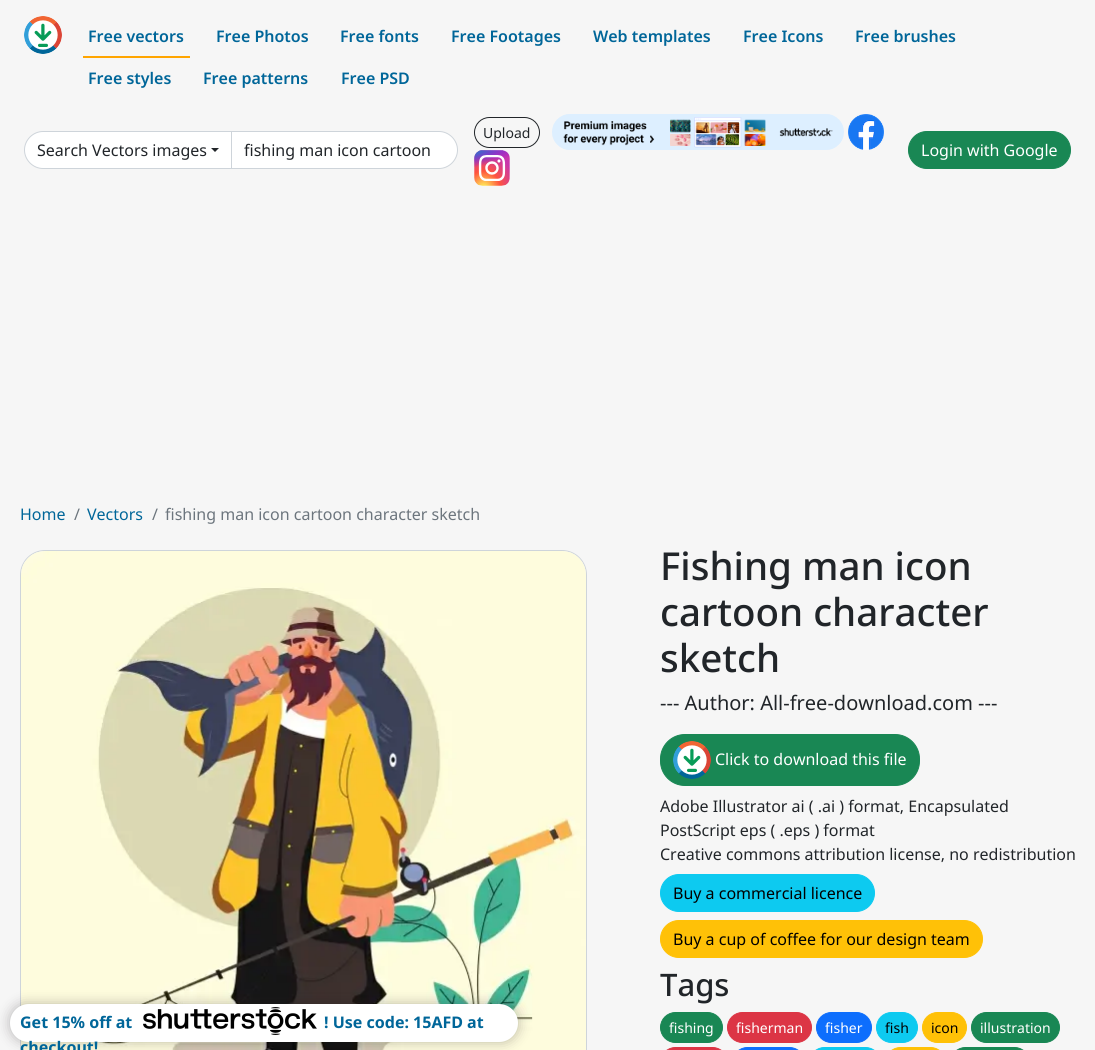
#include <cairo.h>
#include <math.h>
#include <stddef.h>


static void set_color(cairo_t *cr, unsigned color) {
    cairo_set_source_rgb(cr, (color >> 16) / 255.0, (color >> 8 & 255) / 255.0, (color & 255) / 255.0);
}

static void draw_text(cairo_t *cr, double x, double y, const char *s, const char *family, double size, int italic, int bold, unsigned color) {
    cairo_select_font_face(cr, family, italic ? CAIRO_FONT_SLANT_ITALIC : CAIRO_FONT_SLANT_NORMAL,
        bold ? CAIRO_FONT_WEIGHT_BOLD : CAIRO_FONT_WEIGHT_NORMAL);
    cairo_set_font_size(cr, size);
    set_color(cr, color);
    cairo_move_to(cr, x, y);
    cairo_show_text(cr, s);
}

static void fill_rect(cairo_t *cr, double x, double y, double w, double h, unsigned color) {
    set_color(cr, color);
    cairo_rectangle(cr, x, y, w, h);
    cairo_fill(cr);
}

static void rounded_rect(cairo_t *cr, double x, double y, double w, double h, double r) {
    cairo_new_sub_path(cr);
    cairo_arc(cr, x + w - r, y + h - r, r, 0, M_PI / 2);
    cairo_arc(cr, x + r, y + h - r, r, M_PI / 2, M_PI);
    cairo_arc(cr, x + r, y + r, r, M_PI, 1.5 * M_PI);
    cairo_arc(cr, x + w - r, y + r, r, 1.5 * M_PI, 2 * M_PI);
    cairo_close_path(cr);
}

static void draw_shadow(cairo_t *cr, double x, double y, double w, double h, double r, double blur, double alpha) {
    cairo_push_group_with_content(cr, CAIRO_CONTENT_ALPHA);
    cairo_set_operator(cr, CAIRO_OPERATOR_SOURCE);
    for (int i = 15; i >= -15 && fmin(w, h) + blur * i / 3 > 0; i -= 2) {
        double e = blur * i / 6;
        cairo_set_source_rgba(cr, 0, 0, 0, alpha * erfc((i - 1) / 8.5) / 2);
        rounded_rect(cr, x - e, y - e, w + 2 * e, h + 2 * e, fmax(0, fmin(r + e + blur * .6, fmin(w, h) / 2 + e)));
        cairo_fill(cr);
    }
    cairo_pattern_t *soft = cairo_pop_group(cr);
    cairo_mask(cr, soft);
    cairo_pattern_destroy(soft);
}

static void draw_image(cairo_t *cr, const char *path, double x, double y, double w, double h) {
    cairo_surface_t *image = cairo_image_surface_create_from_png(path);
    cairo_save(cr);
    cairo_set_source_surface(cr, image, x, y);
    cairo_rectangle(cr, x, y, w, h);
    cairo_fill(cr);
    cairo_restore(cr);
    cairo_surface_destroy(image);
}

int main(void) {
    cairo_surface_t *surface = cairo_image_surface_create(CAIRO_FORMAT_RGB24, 1095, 1050);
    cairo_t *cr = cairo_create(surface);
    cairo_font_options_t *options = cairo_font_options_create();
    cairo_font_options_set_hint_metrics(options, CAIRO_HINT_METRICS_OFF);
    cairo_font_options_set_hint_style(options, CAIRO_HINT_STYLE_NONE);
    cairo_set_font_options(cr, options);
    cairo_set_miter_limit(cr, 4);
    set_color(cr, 0xF6F6F6);
    cairo_paint(cr);
    draw_image(cr, "assets/img1.png", 24, 16, 38, 38);
    fill_rect(cr, 83, 56, 107, 2, 0xFFA500);
    draw_text(cr, 88, 42, "Free vectors", "Noto Sans SemiBold", 16, 0, 0, 0x006699);
    draw_text(cr, 216, 42, "Free Photos", "Noto Sans SemiBold", 16, 0, 0, 0x006699);
    draw_text(cr, 340, 42, "Free fonts", "Noto Sans SemiBold", 16, 0, 0, 0x006699);
    draw_text(cr, 451, 42, "Free Footages", "Noto Sans SemiBold", 16, 0, 0, 0x006699);
    draw_text(cr, 593, 42, "Web templates", "Noto Sans SemiBold", 16, 0, 0, 0x006699);
    draw_text(cr, 743, 42, "Free Icons", "Noto Sans SemiBold", 16, 0, 0, 0x006699);
    draw_text(cr, 855, 42, "Free brushes", "Noto Sans SemiBold", 16, 0, 0, 0x006699);
    draw_text(cr, 88, 84, "Free styles", "Noto Sans SemiBold", 16, 0, 0, 0x006699);
    draw_text(cr, 203, 84, "Free patterns", "Noto Sans SemiBold", 16, 0, 0, 0x006699);
    draw_text(cr, 341, 84, "Free PSD", "Noto Sans SemiBold", 16, 0, 0, 0x006699);
    rounded_rect(cr, 474.5, 117.5, 65, 30, 15);
    set_color(cr, 0x212529);
    cairo_set_line_width(cr, 1);
    cairo_stroke(cr);
    draw_text(cr, 483, 138, "Upload", "Noto Sans", 14, 0, 0, 0x212529);
    draw_image(cr, "assets/img2.png", 552, 114, 292, 36);
    draw_image(cr, "assets/img3.png", 848, 114, 36, 36);
    draw_image(cr, "assets/img4.png", 474, 150, 36, 36);
    set_color(cr, 0xFFFFFF);
    cairo_new_path(cr);
    cairo_move_to(cr, 43, 131.5);
    cairo_line_to(cr, 231.5, 131.5);
    cairo_line_to(cr, 231.5, 168.5);
    cairo_line_to(cr, 43, 168.5);
    cairo_curve_to(cr, 33, 168.5, 24.5, 160, 24.5, 150);
    cairo_curve_to(cr, 24.5, 140, 33, 131.5, 43, 131.5);
    cairo_close_path(cr);
    cairo_fill_preserve(cr);
    set_color(cr, 0xCED4DA);
    cairo_stroke(cr);
    draw_text(cr, 37, 156, "Search Vectors images", "Noto Sans", 16, 0, 0, 0x212529);
    cairo_new_path(cr);
    cairo_move_to(cr, 211, 148);
    cairo_line_to(cr, 219, 148);
    cairo_line_to(cr, 215, 152);
    cairo_close_path(cr);
    cairo_fill(cr);
    set_color(cr, 0xFFFFFF);
    cairo_new_path(cr);
    cairo_move_to(cr, 231.5, 131.5);
    cairo_line_to(cr, 439, 131.5);
    cairo_curve_to(cr, 449, 131.5, 457.5, 140, 457.5, 150);
    cairo_curve_to(cr, 457.5, 160, 449, 168.5, 439, 168.5);
    cairo_line_to(cr, 231.5, 168.5);
    cairo_close_path(cr);
    cairo_fill_preserve(cr);
    set_color(cr, 0xCED4DA);
    cairo_stroke(cr);
    draw_text(cr, 244, 156, "fishing man icon cartoon", "Noto Sans", 16, 0, 0, 0x212529);
    set_color(cr, 0x198754);
    rounded_rect(cr, 908.5, 131.5, 162, 37, 18.5);
    cairo_fill_preserve(cr);
    cairo_stroke(cr);
    draw_text(cr, 921, 156, "Login with Google", "Noto Sans", 16, 0, 0, 0xFFFFFF);
    draw_text(cr, 20, 520, "Home", "Noto Sans", 16, 0, 0, 0x006699);
    draw_text(cr, 74, 520, "/", "Noto Sans", 16, 0, 0, 0x6C757D);
    draw_text(cr, 87, 520, "Vectors", "Noto Sans", 16, 0, 0, 0x006699);
    draw_text(cr, 152, 520, "/", "Noto Sans", 16, 0, 0, 0x6C757D);
    draw_text(cr, 165, 520, "fishing man icon cartoon character sketch", "Noto Sans", 16, 0, 0, 0x6C757D);
    rounded_rect(cr, 20.5, 550.5, 566, 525, 24.5);
    set_color(cr, 0xCED4DA);
    cairo_stroke(cr);
    draw_image(cr, "assets/img5.png", 21, 551, 565, 499);
    draw_text(cr, 660, 580, "Fishing man icon", "Noto Sans Medium", 38.5, 0, 0, 0x212529);
    draw_text(cr, 660, 626, "cartoon character", "Noto Sans Medium", 38.5, 0, 0, 0x212529);
    draw_text(cr, 660, 672, "sketch", "Noto Sans Medium", 38.5, 0, 0, 0x212529);
    draw_text(cr, 660, 710, "--- Author: All-free-download.com ---", "Noto Sans", 20, 0, 0, 0x212529);
    set_color(cr, 0x198754);
    rounded_rect(cr, 660.5, 734.5, 259, 51, 24.5);
    cairo_fill_preserve(cr);
    cairo_stroke(cr);
    draw_image(cr, "assets/img6.png", 673, 741, 38, 38);
    draw_text(cr, 715, 765, "Click to download this file", "Noto Sans", 16, 0, 0, 0xFFFFFF);
    draw_text(cr, 660, 812, "Adobe Illustrator ai ( .ai ) format, Encapsulated", "Noto Sans", 16, 0, 0, 0x212529);
    draw_text(cr, 660, 836, "PostScript eps ( .eps ) format", "Noto Sans", 16, 0, 0, 0x212529);
    draw_text(cr, 660, 860, "Creative commons attribution license, no redistribution", "Noto Sans", 16, 0, 0, 0x212529);
    set_color(cr, 0x0DCAF0);
    rounded_rect(cr, 660.5, 874.5, 214, 37, 18.5);
    cairo_fill_preserve(cr);
    cairo_stroke(cr);
    draw_text(cr, 673, 899, "Buy a commercial licence", "Noto Sans", 16, 0, 0, 0x000000);
    set_color(cr, 0xFFC107);
    rounded_rect(cr, 660.5, 920.5, 322, 37, 18.5);
    cairo_fill_preserve(cr);
    cairo_stroke(cr);
    draw_text(cr, 673, 945, "Buy a cup of coffee for our design team", "Noto Sans", 16, 0, 0, 0x000000);
    draw_text(cr, 660, 996, "Tags", "Noto Sans Medium", 31, 0, 0, 0x212529);
    set_color(cr, 0x198754);
    rounded_rect(cr, 660.5, 1012.5, 62, 30, 15);
    cairo_fill_preserve(cr);
    cairo_stroke(cr);
    draw_text(cr, 669, 1033, "fishing", "Noto Sans", 14, 0, 0, 0xFFFFFF);
    set_color(cr, 0xDC3545);
    rounded_rect(cr, 727.5, 1012.5, 84, 30, 15);
    cairo_fill_preserve(cr);
    cairo_stroke(cr);
    draw_text(cr, 736, 1033, "fisherman", "Noto Sans", 14, 0, 0, 0xFFFFFF);
    set_color(cr, 0x0D6EFD);
    rounded_rect(cr, 816.5, 1012.5, 55, 30, 15);
    cairo_fill_preserve(cr);
    cairo_stroke(cr);
    draw_text(cr, 825, 1033, "fisher", "Noto Sans", 14, 0, 0, 0xFFFFFF);
    set_color(cr, 0x0DCAF0);
    rounded_rect(cr, 876.5, 1012.5, 41, 30, 15);
    cairo_fill_preserve(cr);
    cairo_stroke(cr);
    draw_text(cr, 885, 1033, "fish", "Noto Sans", 14, 0, 0, 0x000000);
    set_color(cr, 0xFFC107);
    rounded_rect(cr, 922.5, 1012.5, 44, 30, 15);
    cairo_fill_preserve(cr);
    cairo_stroke(cr);
    draw_text(cr, 931, 1033, "icon", "Noto Sans", 14, 0, 0, 0x000000);
    set_color(cr, 0x198754);
    rounded_rect(cr, 971.5, 1012.5, 88, 30, 15);
    cairo_fill_preserve(cr);
    cairo_stroke(cr);
    draw_text(cr, 980, 1033, "illustration", "Noto Sans", 14, 0, 0, 0xFFFFFF);
    set_color(cr, 0xDC3545);
    rounded_rect(cr, 660.5, 1047.5, 67, 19, 15);
    cairo_fill_preserve(cr);
    cairo_stroke(cr);
    set_color(cr, 0x0D6EFD);
    rounded_rect(cr, 732.5, 1047.5, 72, 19, 15);
    cairo_fill_preserve(cr);
    cairo_stroke(cr);
    set_color(cr, 0x0DCAF0);
    rounded_rect(cr, 809.5, 1047.5, 71, 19, 15);
    cairo_fill_preserve(cr);
    cairo_stroke(cr);
    set_color(cr, 0xFFC107);
    rounded_rect(cr, 885.5, 1047.5, 60, 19, 15);
    cairo_fill_preserve(cr);
    cairo_stroke(cr);
    set_color(cr, 0x198754);
    rounded_rect(cr, 950.5, 1047.5, 79, 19, 15);
    cairo_fill_preserve(cr);
    cairo_stroke(cr);
    set_color(cr, 0x231F20);
    draw_shadow(cr, 10, 1004, 508, 38, 19, 6.5, 0.3);
    set_color(cr, 0xFFFFFF);
    rounded_rect(cr, 10, 1004, 508, 38, 19);
    cairo_fill(cr);
    draw_text(cr, 20, 1028, "Get 15% off at", "Noto Sans", 16, 0, 1, 0x006699);
    draw_image(cr, "assets/img7.png", 143, 1007, 174, 28);
    draw_text(cr, 324, 1028, "! Use code: 15AFD at", "Noto Sans", 16, 0, 1, 0x006699);
    draw_text(cr, 20, 1053, "checkout!", "Noto Sans", 16, 0, 1, 0x006699);
    cairo_surface_write_to_png(surface, "output.png");
    cairo_font_options_destroy(options);
    cairo_destroy(cr);
    cairo_surface_destroy(surface);
    return 0;
}
